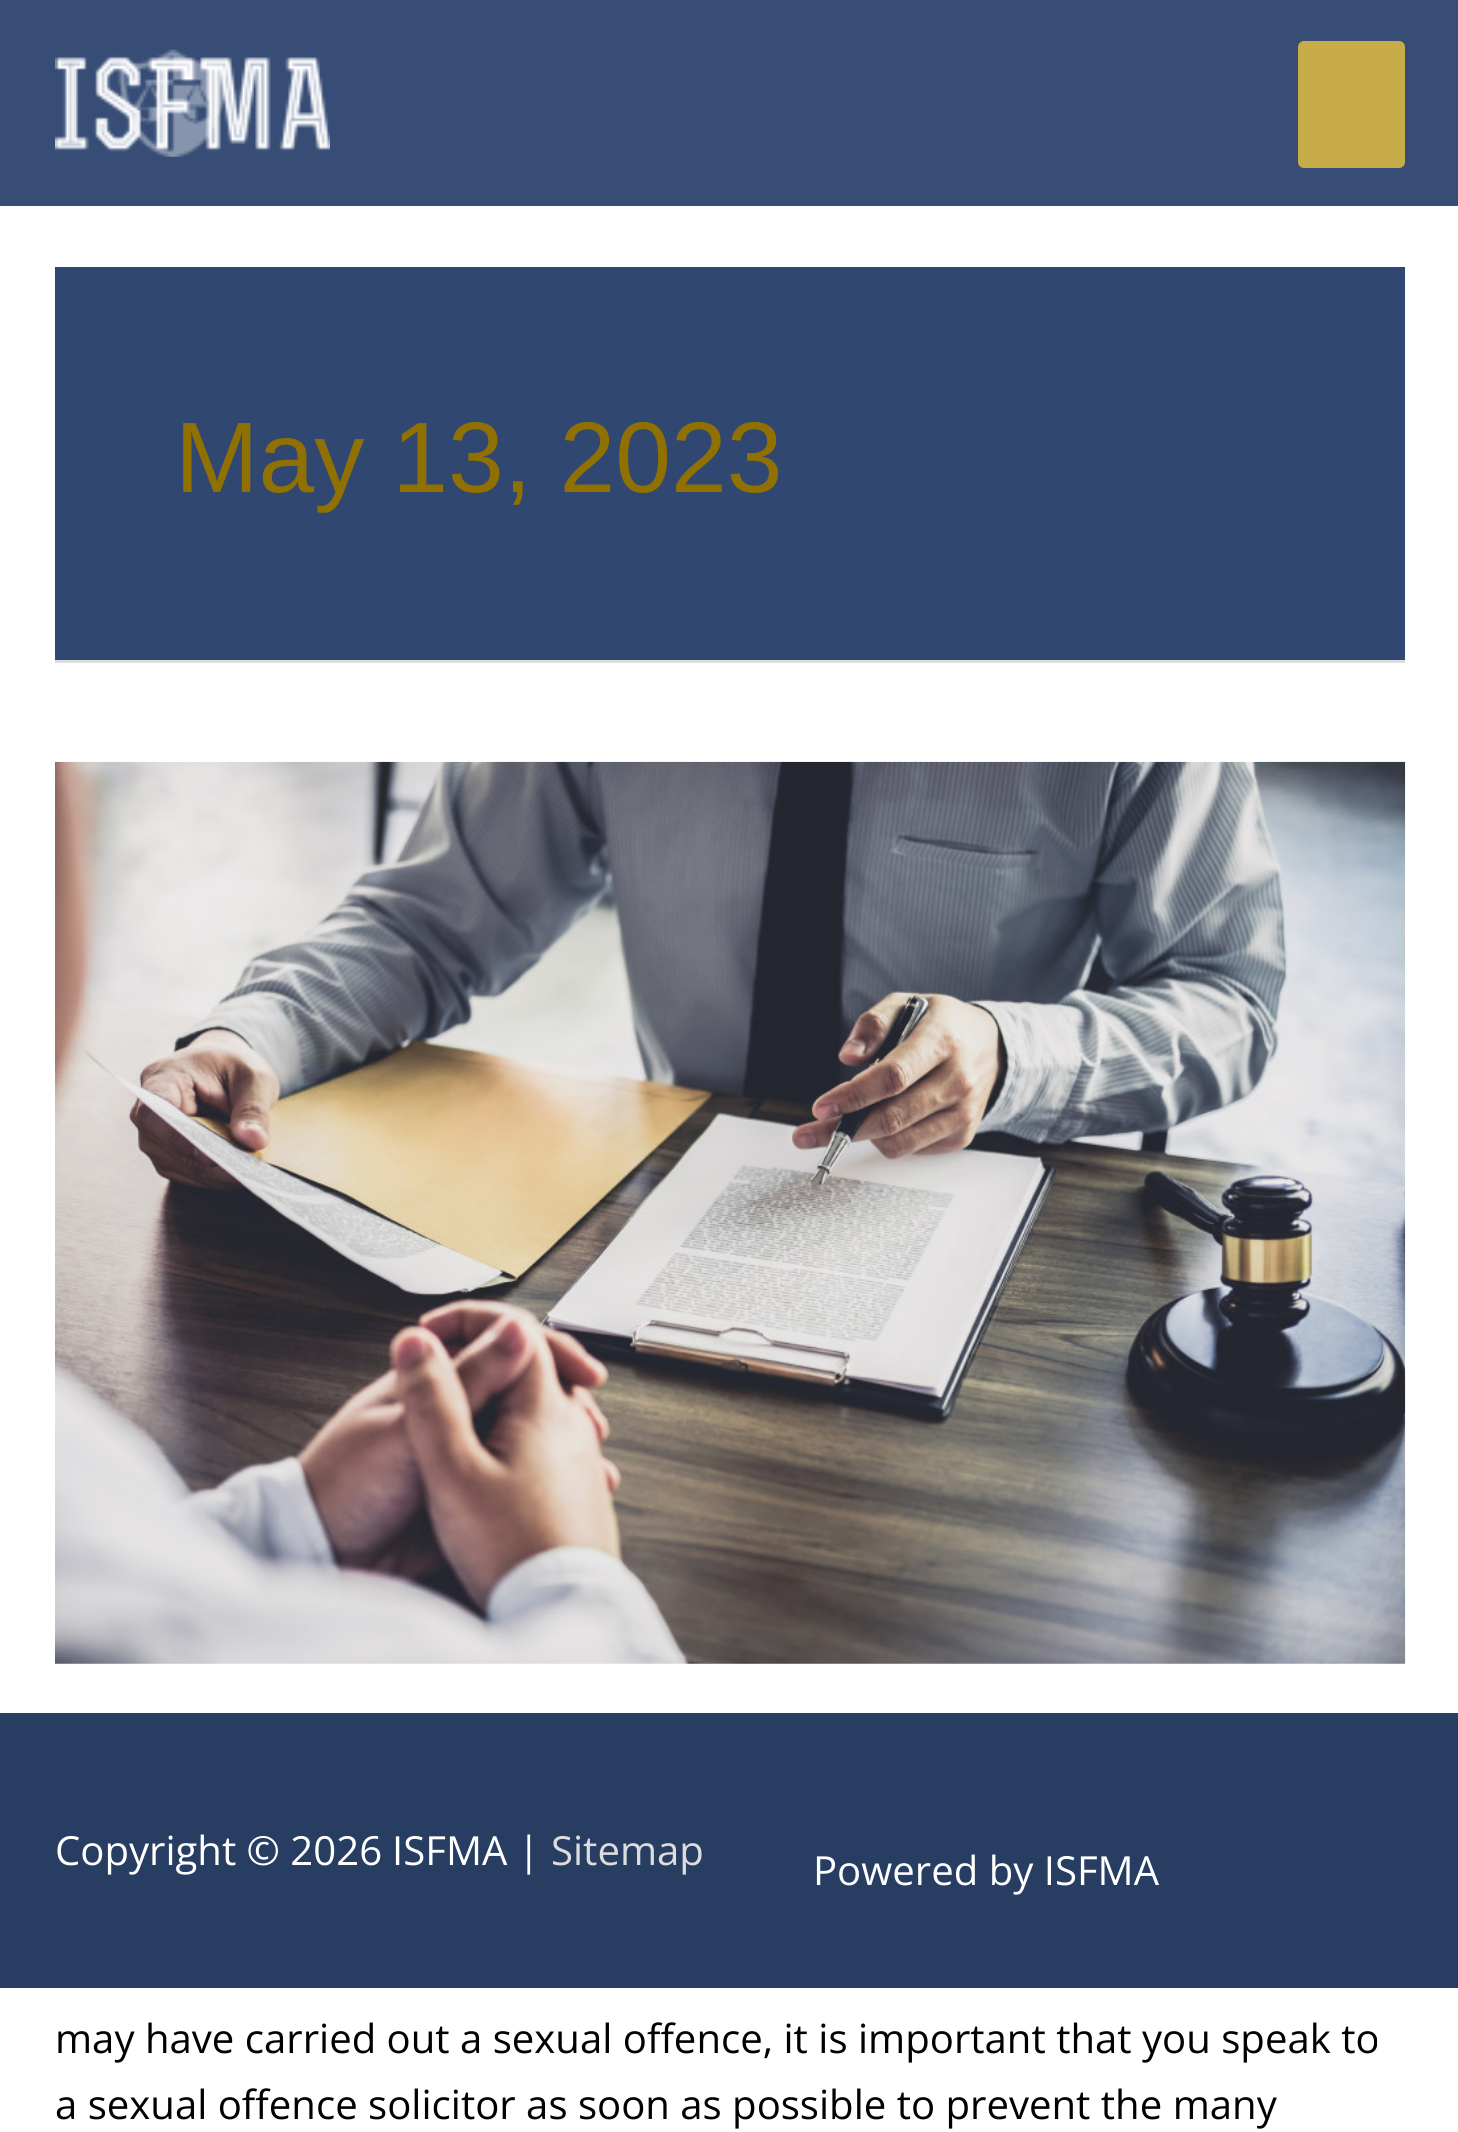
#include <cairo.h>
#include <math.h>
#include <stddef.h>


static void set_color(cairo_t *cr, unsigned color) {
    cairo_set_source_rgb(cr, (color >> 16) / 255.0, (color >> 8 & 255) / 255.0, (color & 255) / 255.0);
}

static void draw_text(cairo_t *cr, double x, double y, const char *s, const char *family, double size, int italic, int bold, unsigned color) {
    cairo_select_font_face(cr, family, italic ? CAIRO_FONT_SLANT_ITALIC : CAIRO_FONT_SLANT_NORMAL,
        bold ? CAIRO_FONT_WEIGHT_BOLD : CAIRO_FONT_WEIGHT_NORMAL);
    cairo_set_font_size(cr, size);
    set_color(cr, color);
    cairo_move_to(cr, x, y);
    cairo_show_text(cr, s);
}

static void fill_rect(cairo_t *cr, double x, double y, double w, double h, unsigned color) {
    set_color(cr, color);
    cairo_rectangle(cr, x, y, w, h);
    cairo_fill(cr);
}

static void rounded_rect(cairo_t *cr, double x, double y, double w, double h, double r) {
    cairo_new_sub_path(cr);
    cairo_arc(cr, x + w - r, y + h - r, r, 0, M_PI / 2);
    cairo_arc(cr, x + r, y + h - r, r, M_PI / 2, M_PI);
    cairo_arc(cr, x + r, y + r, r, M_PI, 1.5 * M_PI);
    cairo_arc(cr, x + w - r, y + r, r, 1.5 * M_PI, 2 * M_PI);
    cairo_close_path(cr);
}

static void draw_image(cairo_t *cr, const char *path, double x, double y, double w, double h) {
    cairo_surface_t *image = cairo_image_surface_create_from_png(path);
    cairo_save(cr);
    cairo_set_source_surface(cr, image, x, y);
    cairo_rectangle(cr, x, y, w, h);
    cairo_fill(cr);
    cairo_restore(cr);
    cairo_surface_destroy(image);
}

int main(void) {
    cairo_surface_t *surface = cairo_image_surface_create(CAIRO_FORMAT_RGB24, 1458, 2132);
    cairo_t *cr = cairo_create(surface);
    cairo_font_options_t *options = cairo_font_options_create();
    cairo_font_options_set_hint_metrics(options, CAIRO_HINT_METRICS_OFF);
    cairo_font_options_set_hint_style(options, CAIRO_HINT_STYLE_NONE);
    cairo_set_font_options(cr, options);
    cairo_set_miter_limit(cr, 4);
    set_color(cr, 0xFFFFFF);
    cairo_paint(cr);
    fill_rect(cr, 0, 0, 1458, 206, 0x374D76);
    draw_image(cr, "assets/img1.png", 55, 49, 275, 108);
    set_color(cr, 0xC8AC48);
    rounded_rect(cr, 1298, 41, 107, 127, 6);
    cairo_fill(cr);
    fill_rect(cr, 55, 267, 1350, 393, 0x304771);
    fill_rect(cr, 55, 660, 1350, 3, 0xDDDDDD);
    draw_text(cr, 175, 492, "May 13, 2023", "Liberation Sans", 100.25, 0, 0, 0x8F7000);
    draw_image(cr, "assets/img2.png", 55, 761, 1351, 903);
    draw_text(cr, 55, 2053, "may have carried out a sexual offence, it is important that you speak to", "Open Sans", 40.1, 0, 0, 0x000000);
    draw_text(cr, 55, 2119, "a sexual offence solicitor as soon as possible to prevent the many", "Open Sans", 40.1, 0, 0, 0x000000);
    fill_rect(cr, 0, 1713, 1458, 275, 0x283D62);
    draw_text(cr, 55, 1865, "Copyright © 2026", "Open Sans", 40.1, 0, 0, 0xFFFFFF);
    draw_text(cr, 392, 1865, "ISFMA |", "Open Sans", 40.1, 0, 0, 0xFFFFFF);
    draw_text(cr, 551, 1865, "Sitemap", "Open Sans", 40.1, 0, 0, 0xDDDDDD);
    draw_text(cr, 813, 1885, "Powered by ISFMA", "Open Sans", 40.1, 0, 0, 0xFFFFFF);
    cairo_surface_write_to_png(surface, "output.png");
    cairo_font_options_destroy(options);
    cairo_destroy(cr);
    cairo_surface_destroy(surface);
    return 0;
}
